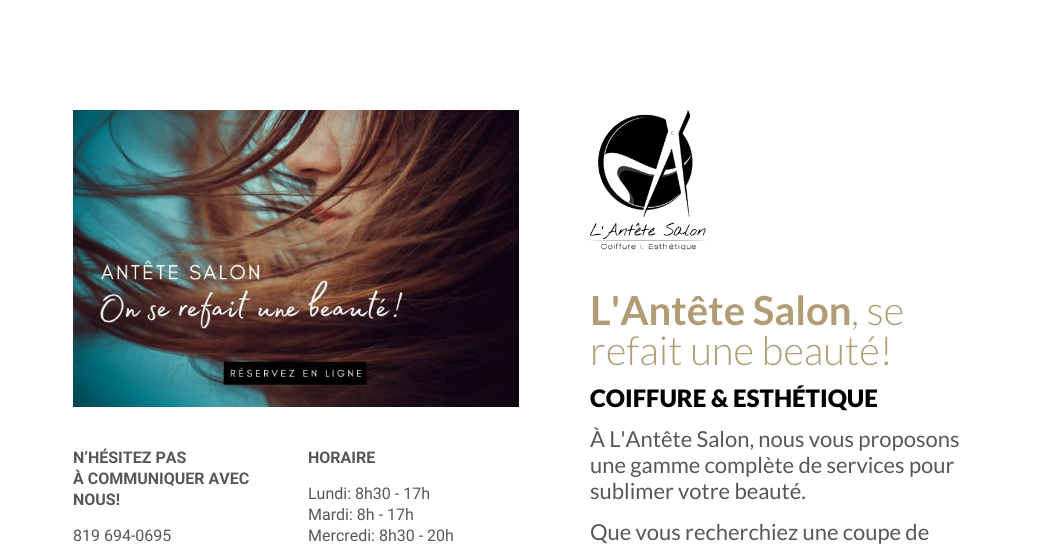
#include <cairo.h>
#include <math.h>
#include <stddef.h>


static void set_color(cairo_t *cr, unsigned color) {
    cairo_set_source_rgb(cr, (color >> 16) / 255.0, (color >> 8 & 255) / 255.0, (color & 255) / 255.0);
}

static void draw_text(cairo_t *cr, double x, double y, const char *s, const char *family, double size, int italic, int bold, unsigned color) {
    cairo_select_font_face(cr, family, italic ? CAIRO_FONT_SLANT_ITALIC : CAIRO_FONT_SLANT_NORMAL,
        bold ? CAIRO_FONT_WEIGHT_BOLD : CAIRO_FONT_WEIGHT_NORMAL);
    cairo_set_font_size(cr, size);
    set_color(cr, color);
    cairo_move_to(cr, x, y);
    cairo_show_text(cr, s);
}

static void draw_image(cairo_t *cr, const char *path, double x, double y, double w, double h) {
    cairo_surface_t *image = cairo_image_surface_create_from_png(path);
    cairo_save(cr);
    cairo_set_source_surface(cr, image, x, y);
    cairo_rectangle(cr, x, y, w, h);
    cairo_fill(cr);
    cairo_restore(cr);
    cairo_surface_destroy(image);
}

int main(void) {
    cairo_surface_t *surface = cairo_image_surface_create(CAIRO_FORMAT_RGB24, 1061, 555);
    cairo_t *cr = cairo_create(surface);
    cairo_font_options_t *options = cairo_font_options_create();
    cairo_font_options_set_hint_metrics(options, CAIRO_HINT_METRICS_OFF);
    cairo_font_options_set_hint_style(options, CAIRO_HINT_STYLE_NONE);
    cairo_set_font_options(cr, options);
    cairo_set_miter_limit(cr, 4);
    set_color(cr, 0xFFFFFF);
    cairo_paint(cr);
    draw_image(cr, "assets/img1.png", 73, 110, 446, 297);
    draw_text(cr, 73, 463, "N’HÉSITEZ PAS", "Roboto", 16, 0, 1, 0x575757);
    draw_text(cr, 73, 484, "À COMMUNIQUER AVEC", "Roboto", 16, 0, 1, 0x575757);
    draw_text(cr, 73, 505, "NOUS!", "Roboto", 16, 0, 1, 0x575757);
    draw_text(cr, 73, 541, "819 694-0695", "Roboto", 16, 0, 0, 0x575757);
    draw_text(cr, 308, 463, "HORAIRE", "Roboto", 16, 0, 1, 0x575757);
    draw_text(cr, 308, 499, "Lundi: 8h30 - 17h", "Roboto", 16, 0, 0, 0x575757);
    draw_text(cr, 308, 520, "Mardi: 8h - 17h", "Roboto", 16, 0, 0, 0x575757);
    draw_text(cr, 308, 541, "Mercredi: 8h30 - 20h", "Roboto", 16, 0, 0, 0x575757);
    draw_image(cr, "assets/img2.png", 590, 110, 116, 140);
    draw_text(cr, 590, 325, "L'Antête Salon", "Lato", 40, 0, 1, 0xB19C73);
    draw_text(cr, 851, 325, ", se", "Lato Light", 40, 0, 0, 0xB19C73);
    draw_text(cr, 590, 365, "refait une beauté!", "Lato Light", 40, 0, 0, 0xB19C73);
    draw_text(cr, 590, 407, "COIFFURE & ESTHÉTIQUE", "Lato Black", 24, 0, 0, 0x000000);
    draw_text(cr, 590, 447, "À L'Antête Salon, nous vous proposons", "Lato", 22, 0, 0, 0x575757);
    draw_text(cr, 590, 473, "une gamme complète de services pour", "Lato", 22, 0, 0, 0x575757);
    draw_text(cr, 590, 499, "sublimer votre beauté.", "Lato", 22, 0, 0, 0x575757);
    draw_text(cr, 590, 540, "Que vous recherchiez une coupe de", "Lato", 22, 0, 0, 0x575757);
    cairo_surface_write_to_png(surface, "output.png");
    cairo_font_options_destroy(options);
    cairo_destroy(cr);
    cairo_surface_destroy(surface);
    return 0;
}
